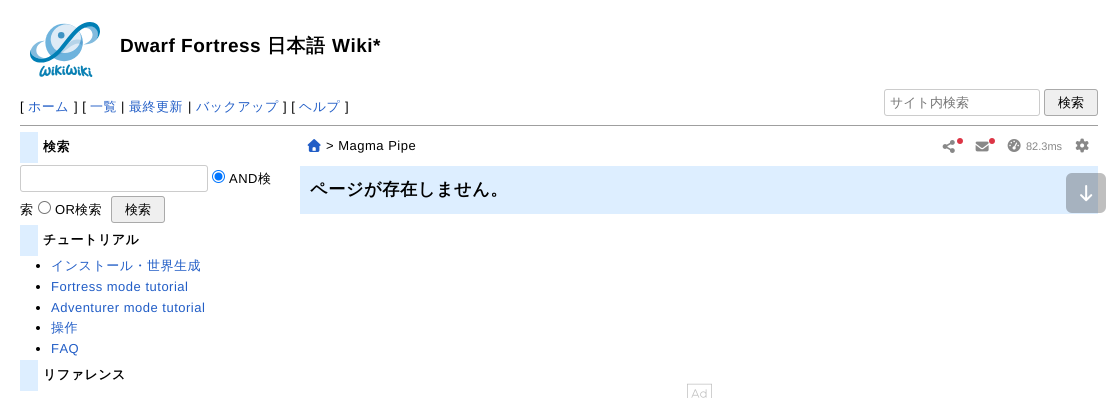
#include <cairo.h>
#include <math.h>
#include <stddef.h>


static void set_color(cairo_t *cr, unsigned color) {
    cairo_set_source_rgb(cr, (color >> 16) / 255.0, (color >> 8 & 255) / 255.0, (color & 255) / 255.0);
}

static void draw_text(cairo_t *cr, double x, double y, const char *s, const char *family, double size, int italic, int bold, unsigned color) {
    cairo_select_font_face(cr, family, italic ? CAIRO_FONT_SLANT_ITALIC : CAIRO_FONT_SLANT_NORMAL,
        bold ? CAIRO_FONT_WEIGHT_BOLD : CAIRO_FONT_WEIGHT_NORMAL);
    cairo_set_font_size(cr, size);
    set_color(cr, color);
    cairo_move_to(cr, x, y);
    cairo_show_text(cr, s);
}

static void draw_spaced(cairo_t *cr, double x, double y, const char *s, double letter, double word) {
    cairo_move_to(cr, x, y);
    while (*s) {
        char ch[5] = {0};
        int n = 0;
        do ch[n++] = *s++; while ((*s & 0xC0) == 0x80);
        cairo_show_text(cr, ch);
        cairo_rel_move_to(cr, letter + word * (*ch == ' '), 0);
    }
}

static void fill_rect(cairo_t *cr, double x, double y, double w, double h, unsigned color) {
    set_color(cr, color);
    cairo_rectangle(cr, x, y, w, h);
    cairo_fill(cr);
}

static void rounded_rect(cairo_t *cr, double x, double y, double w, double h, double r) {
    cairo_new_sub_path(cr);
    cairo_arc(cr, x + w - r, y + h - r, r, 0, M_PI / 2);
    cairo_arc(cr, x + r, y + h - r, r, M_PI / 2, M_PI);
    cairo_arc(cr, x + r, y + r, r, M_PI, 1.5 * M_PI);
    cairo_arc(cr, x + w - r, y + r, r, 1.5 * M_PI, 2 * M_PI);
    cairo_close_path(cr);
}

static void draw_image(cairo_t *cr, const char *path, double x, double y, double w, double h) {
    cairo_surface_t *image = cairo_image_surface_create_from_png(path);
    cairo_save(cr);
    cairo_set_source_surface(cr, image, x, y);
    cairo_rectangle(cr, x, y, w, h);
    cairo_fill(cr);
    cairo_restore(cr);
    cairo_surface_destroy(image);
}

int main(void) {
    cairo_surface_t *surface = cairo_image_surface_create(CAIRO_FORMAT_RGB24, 1118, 398);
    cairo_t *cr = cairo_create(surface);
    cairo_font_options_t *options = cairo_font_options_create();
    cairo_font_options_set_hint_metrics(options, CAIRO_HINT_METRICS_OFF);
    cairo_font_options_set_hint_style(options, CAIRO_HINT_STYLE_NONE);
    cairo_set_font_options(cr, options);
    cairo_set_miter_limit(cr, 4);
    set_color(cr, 0xFFFFFF);
    cairo_paint(cr);
    draw_image(cr, "assets/img1.png", 30, 22, 70, 55);
    cairo_select_font_face(cr, "Liberation Sans", CAIRO_FONT_SLANT_NORMAL, CAIRO_FONT_WEIGHT_BOLD);
    cairo_set_font_size(cr, 19);
    set_color(cr, 0x000000);
    draw_spaced(cr, 120, 52, "Dwarf Fortress", 0.5, 0);
    cairo_select_font_face(cr, "WenQuanYi Zen Hei", CAIRO_FONT_SLANT_NORMAL, CAIRO_FONT_WEIGHT_BOLD);
    draw_spaced(cr, 267, 52, "日本語", 0.5, 0);
    cairo_select_font_face(cr, "Liberation Sans", CAIRO_FONT_SLANT_NORMAL, CAIRO_FONT_WEIGHT_BOLD);
    draw_spaced(cr, 332, 52, "Wiki*", 0.5, 0);
    cairo_select_font_face(cr, "Liberation Sans", CAIRO_FONT_SLANT_NORMAL, CAIRO_FONT_WEIGHT_NORMAL);
    cairo_set_font_size(cr, 13);
    draw_spaced(cr, 20, 111, "[", 0.5, 0);
    cairo_select_font_face(cr, "WenQuanYi Zen Hei Medium", CAIRO_FONT_SLANT_NORMAL, CAIRO_FONT_WEIGHT_NORMAL);
    set_color(cr, 0x215DC6);
    draw_spaced(cr, 28, 111, "ホーム", 0.5, 0);
    cairo_select_font_face(cr, "Liberation Sans", CAIRO_FONT_SLANT_NORMAL, CAIRO_FONT_WEIGHT_NORMAL);
    set_color(cr, 0x000000);
    draw_spaced(cr, 74, 111, "] [", 0.5, 0);
    cairo_select_font_face(cr, "WenQuanYi Zen Hei Medium", CAIRO_FONT_SLANT_NORMAL, CAIRO_FONT_WEIGHT_NORMAL);
    set_color(cr, 0x215DC6);
    draw_spaced(cr, 90, 111, "一覧", 0.5, 0);
    cairo_select_font_face(cr, "Liberation Sans", CAIRO_FONT_SLANT_NORMAL, CAIRO_FONT_WEIGHT_NORMAL);
    set_color(cr, 0x000000);
    draw_spaced(cr, 121, 111, "|", 0.5, 0);
    cairo_select_font_face(cr, "WenQuanYi Zen Hei Medium", CAIRO_FONT_SLANT_NORMAL, CAIRO_FONT_WEIGHT_NORMAL);
    set_color(cr, 0x215DC6);
    draw_spaced(cr, 129, 111, "最終更新", 0.5, 0);
    cairo_select_font_face(cr, "Liberation Sans", CAIRO_FONT_SLANT_NORMAL, CAIRO_FONT_WEIGHT_NORMAL);
    set_color(cr, 0x000000);
    draw_spaced(cr, 188, 111, "|", 0.5, 0);
    cairo_select_font_face(cr, "WenQuanYi Zen Hei Medium", CAIRO_FONT_SLANT_NORMAL, CAIRO_FONT_WEIGHT_NORMAL);
    set_color(cr, 0x215DC6);
    draw_spaced(cr, 196, 111, "バックアップ", 0.5, 0);
    cairo_select_font_face(cr, "Liberation Sans", CAIRO_FONT_SLANT_NORMAL, CAIRO_FONT_WEIGHT_NORMAL);
    set_color(cr, 0x000000);
    draw_spaced(cr, 283, 111, "] [", 0.5, 0);
    cairo_select_font_face(cr, "WenQuanYi Zen Hei Medium", CAIRO_FONT_SLANT_NORMAL, CAIRO_FONT_WEIGHT_NORMAL);
    set_color(cr, 0x215DC6);
    draw_spaced(cr, 299, 111, "ヘルプ", 0.5, 0);
    cairo_select_font_face(cr, "Liberation Sans", CAIRO_FONT_SLANT_NORMAL, CAIRO_FONT_WEIGHT_NORMAL);
    set_color(cr, 0x000000);
    draw_spaced(cr, 345, 111, "]", 0.5, 0);
    rounded_rect(cr, 884.5, 89.5, 155, 26, 2.5);
    set_color(cr, 0xCCCCCC);
    cairo_set_line_width(cr, 1);
    cairo_stroke(cr);
    draw_text(cr, 890, 107, "サイト内検索", "WenQuanYi Zen Hei Medium", 13, 0, 0, 0x757575);
    set_color(cr, 0xEFEFEF);
    rounded_rect(cr, 1044.5, 89.5, 53, 26, 2.5);
    cairo_fill_preserve(cr);
    set_color(cr, 0xAAAAAA);
    cairo_stroke(cr);
    draw_text(cr, 1058, 107, "検索", "WenQuanYi Zen Hei Medium", 13, 0, 0, 0x000000);
    fill_rect(cr, 20, 125, 1078, 1, 0x9F9F9F);
    fill_rect(cr, 300, 166, 798, 48, 0xDDEEFF);
    cairo_set_source_rgba(cr, 0, 0, 0, 0.25);
    rounded_rect(cr, 1066, 173, 40, 40, 6);
    cairo_fill(cr);
    draw_image(cr, "assets/img2.png", 1080, 185, 13, 17);
    fill_rect(cr, 20, 132, 18, 31, 0xDDEEFF);
    cairo_select_font_face(cr, "WenQuanYi Zen Hei", CAIRO_FONT_SLANT_NORMAL, CAIRO_FONT_WEIGHT_BOLD);
    set_color(cr, 0x000000);
    draw_spaced(cr, 43, 151, "検索", 0.5, 0);
    rounded_rect(cr, 20.5, 165.5, 187, 26, 2.5);
    set_color(cr, 0xCCCCCC);
    cairo_stroke(cr);
    cairo_arc(cr, 218.5, 176.5, 6, 0, 2 * M_PI);
    set_color(cr, 0x0075FF);
    cairo_stroke(cr);
    cairo_arc(cr, 218.5, 176.5, 4, 0, 2 * M_PI);
    cairo_fill(cr);
    cairo_select_font_face(cr, "Liberation Sans", CAIRO_FONT_SLANT_NORMAL, CAIRO_FONT_WEIGHT_NORMAL);
    set_color(cr, 0x000000);
    draw_spaced(cr, 229, 183, "AND", 0.5, 0);
    cairo_select_font_face(cr, "WenQuanYi Zen Hei Medium", CAIRO_FONT_SLANT_NORMAL, CAIRO_FONT_WEIGHT_NORMAL);
    draw_spaced(cr, 258, 183, "検", 0.5, 0);
    draw_spaced(cr, 20, 214, "索", 0.5, 0);
    cairo_new_path(cr);
    cairo_arc(cr, 44.5, 207.5, 6, 0, 2 * M_PI);
    set_color(cr, 0x767676);
    cairo_stroke(cr);
    cairo_select_font_face(cr, "Liberation Sans", CAIRO_FONT_SLANT_NORMAL, CAIRO_FONT_WEIGHT_NORMAL);
    set_color(cr, 0x000000);
    draw_spaced(cr, 55, 214, "OR", 0.5, 0);
    cairo_select_font_face(cr, "WenQuanYi Zen Hei Medium", CAIRO_FONT_SLANT_NORMAL, CAIRO_FONT_WEIGHT_NORMAL);
    draw_spaced(cr, 75, 214, "検索", 0.5, 0);
    set_color(cr, 0xEFEFEF);
    rounded_rect(cr, 111.5, 196.5, 53, 26, 2.5);
    cairo_fill_preserve(cr);
    set_color(cr, 0xAAAAAA);
    cairo_stroke(cr);
    draw_text(cr, 125, 214, "検索", "WenQuanYi Zen Hei Medium", 13, 0, 0, 0x000000);
    fill_rect(cr, 20, 225, 18, 31, 0xDDEEFF);
    cairo_select_font_face(cr, "WenQuanYi Zen Hei", CAIRO_FONT_SLANT_NORMAL, CAIRO_FONT_WEIGHT_BOLD);
    set_color(cr, 0x000000);
    draw_spaced(cr, 43, 244, "チュートリアル", 0.5, 0);
    cairo_new_path(cr);
    cairo_arc(cr, 38, 266, 2, 0, 2 * M_PI);
    cairo_fill(cr);
    cairo_select_font_face(cr, "WenQuanYi Zen Hei Medium", CAIRO_FONT_SLANT_NORMAL, CAIRO_FONT_WEIGHT_NORMAL);
    set_color(cr, 0x215DC6);
    draw_spaced(cr, 51, 270, "インストール・世界生成", 0.5, 0);
    set_color(cr, 0x000000);
    cairo_new_path(cr);
    cairo_arc(cr, 38, 287, 2, 0, 2 * M_PI);
    cairo_fill(cr);
    cairo_select_font_face(cr, "Liberation Sans", CAIRO_FONT_SLANT_NORMAL, CAIRO_FONT_WEIGHT_NORMAL);
    set_color(cr, 0x215DC6);
    draw_spaced(cr, 51, 291, "Fortress mode tutorial", 0.5, 0);
    set_color(cr, 0x000000);
    cairo_new_path(cr);
    cairo_arc(cr, 38, 308, 2, 0, 2 * M_PI);
    cairo_fill(cr);
    set_color(cr, 0x215DC6);
    draw_spaced(cr, 51, 312, "Adventurer mode tutorial", 0.5, 0);
    set_color(cr, 0x000000);
    cairo_new_path(cr);
    cairo_arc(cr, 38, 328, 2, 0, 2 * M_PI);
    cairo_fill(cr);
    cairo_select_font_face(cr, "WenQuanYi Zen Hei Medium", CAIRO_FONT_SLANT_NORMAL, CAIRO_FONT_WEIGHT_NORMAL);
    set_color(cr, 0x215DC6);
    draw_spaced(cr, 51, 332, "操作", 0.5, 0);
    set_color(cr, 0x000000);
    cairo_new_path(cr);
    cairo_arc(cr, 38, 349, 2, 0, 2 * M_PI);
    cairo_fill(cr);
    cairo_select_font_face(cr, "Liberation Sans", CAIRO_FONT_SLANT_NORMAL, CAIRO_FONT_WEIGHT_NORMAL);
    set_color(cr, 0x215DC6);
    draw_spaced(cr, 51, 353, "FAQ", 0.5, 0);
    fill_rect(cr, 20, 360, 18, 31, 0xDDEEFF);
    cairo_select_font_face(cr, "WenQuanYi Zen Hei", CAIRO_FONT_SLANT_NORMAL, CAIRO_FONT_WEIGHT_BOLD);
    set_color(cr, 0x000000);
    draw_spaced(cr, 43, 379, "リファレンス", 0.5, 0);
    draw_image(cr, "assets/img3.png", 307, 139, 14, 13);
    cairo_select_font_face(cr, "Liberation Sans", CAIRO_FONT_SLANT_NORMAL, CAIRO_FONT_WEIGHT_NORMAL);
    draw_spaced(cr, 326, 150, "> Magma Pipe", 0.5, 0);
    draw_image(cr, "assets/img4.png", 942, 140, 13, 13);
    set_color(cr, 0xDC3545);
    cairo_arc(cr, 960, 141, 3, 0, 2 * M_PI);
    cairo_fill(cr);
    draw_image(cr, "assets/img5.png", 975, 141, 14, 11);
    cairo_arc(cr, 992, 141, 3, 0, 2 * M_PI);
    cairo_fill(cr);
    draw_image(cr, "assets/img6.png", 1007, 139, 14, 13);
    draw_text(cr, 1026, 150, "82.3ms", "Liberation Sans", 11, 0, 0, 0x888888);
    draw_image(cr, "assets/img7.png", 1075, 138, 14, 15);
    cairo_select_font_face(cr, "WenQuanYi Zen Hei", CAIRO_FONT_SLANT_NORMAL, CAIRO_FONT_WEIGHT_BOLD);
    cairo_set_font_size(cr, 17.25);
    set_color(cr, 0x000000);
    draw_spaced(cr, 310, 195, "ページが存在しません。", 0.5, 0);
    draw_image(cr, "assets/img8.png", 687, 383, 25, 15);
    cairo_surface_write_to_png(surface, "output.png");
    cairo_font_options_destroy(options);
    cairo_destroy(cr);
    cairo_surface_destroy(surface);
    return 0;
}
